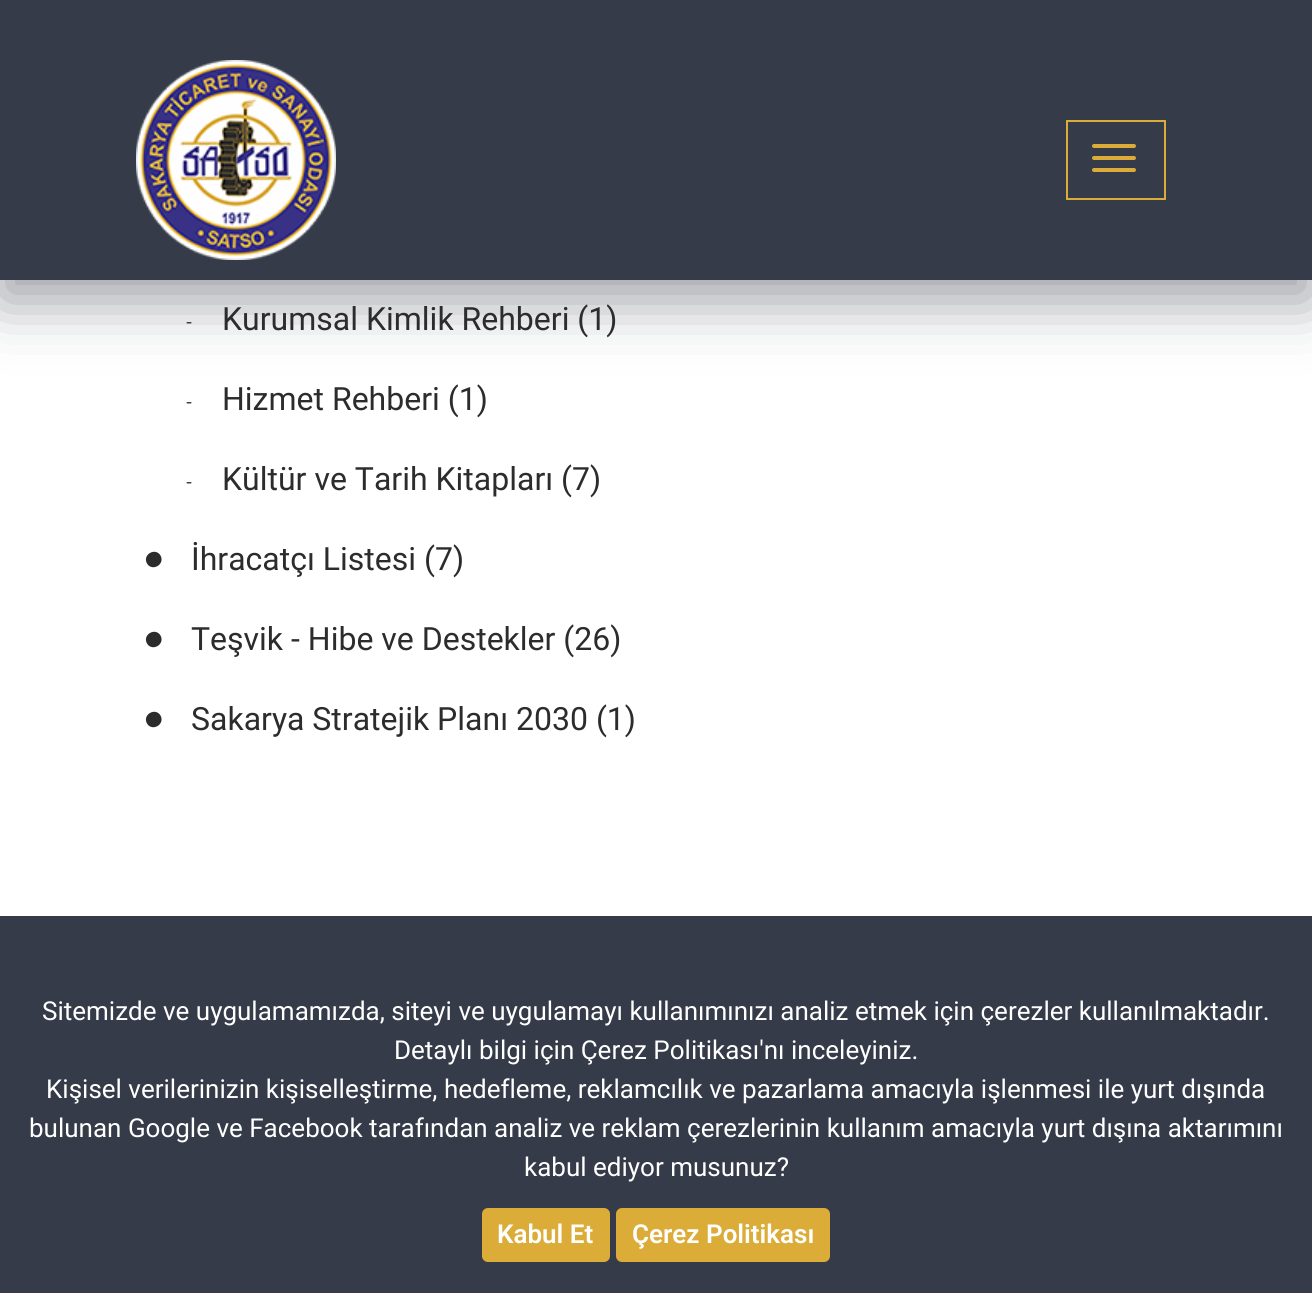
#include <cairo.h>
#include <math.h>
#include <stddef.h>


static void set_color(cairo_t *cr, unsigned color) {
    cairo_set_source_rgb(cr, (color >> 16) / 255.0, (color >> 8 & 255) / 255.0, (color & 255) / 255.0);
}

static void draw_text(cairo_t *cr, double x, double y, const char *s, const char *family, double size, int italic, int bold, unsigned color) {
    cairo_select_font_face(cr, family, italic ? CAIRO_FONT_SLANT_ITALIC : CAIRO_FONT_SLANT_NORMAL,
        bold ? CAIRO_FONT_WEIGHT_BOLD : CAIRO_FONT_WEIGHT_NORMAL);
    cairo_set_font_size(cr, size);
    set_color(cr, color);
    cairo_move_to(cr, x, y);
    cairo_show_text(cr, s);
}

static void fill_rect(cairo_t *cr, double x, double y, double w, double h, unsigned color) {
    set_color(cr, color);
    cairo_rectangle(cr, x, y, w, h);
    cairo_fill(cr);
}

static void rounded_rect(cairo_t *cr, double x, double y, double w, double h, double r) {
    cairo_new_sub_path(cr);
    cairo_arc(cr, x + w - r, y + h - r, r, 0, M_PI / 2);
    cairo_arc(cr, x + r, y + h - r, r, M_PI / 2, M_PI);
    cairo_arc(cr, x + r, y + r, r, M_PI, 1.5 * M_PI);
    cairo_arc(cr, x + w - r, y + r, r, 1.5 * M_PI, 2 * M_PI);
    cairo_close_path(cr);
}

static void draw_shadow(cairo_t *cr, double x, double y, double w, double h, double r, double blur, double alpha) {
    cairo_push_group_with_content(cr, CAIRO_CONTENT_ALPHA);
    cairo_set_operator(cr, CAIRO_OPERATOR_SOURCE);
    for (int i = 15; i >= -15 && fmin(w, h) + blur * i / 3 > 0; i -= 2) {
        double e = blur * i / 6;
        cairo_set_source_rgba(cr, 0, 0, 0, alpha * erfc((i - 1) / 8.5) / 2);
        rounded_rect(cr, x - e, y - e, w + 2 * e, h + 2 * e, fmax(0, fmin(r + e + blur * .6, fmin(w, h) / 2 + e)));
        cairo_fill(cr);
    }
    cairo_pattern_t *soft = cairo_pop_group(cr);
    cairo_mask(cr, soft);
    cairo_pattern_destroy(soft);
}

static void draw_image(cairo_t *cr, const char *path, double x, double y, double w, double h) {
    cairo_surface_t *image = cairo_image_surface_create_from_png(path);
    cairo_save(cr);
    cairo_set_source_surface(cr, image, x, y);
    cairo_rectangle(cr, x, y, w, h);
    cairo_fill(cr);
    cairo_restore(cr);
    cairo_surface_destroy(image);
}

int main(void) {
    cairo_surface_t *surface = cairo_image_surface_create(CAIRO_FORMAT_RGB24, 1312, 1293);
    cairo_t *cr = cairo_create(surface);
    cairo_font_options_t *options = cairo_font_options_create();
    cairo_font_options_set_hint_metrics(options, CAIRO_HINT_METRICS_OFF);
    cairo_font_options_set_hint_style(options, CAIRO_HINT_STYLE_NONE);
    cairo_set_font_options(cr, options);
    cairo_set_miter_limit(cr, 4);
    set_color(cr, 0xFFFFFF);
    cairo_paint(cr);
    set_color(cr, 0x353B48);
    draw_shadow(cr, 0, 20, 1312, 280, 0, 30, 0.5);
    fill_rect(cr, 0, 0, 1312, 280, 0x353B48);
    draw_image(cr, "assets/img1.png", 136, 60, 200, 200);
    cairo_rectangle(cr, 1067, 121, 98, 78);
    set_color(cr, 0xDBAC38);
    cairo_stroke(cr);
    rounded_rect(cr, 1092, 144, 44, 4, 2);
    cairo_fill(cr);
    rounded_rect(cr, 1092, 156, 44, 4, 2);
    cairo_fill(cr);
    rounded_rect(cr, 1092, 168, 44, 4, 2);
    cairo_fill(cr);
    draw_text(cr, 186, 327, "-", "Liberation Serif", 18, 0, 0, 0x2C2C2C);
    draw_text(cr, 222, 330, "Kurumsal Kimlik Rehberi (1)", "Roboto", 32, 0, 0, 0x2C2C2C);
    draw_text(cr, 186, 407, "-", "Liberation Serif", 18, 0, 0, 0x2C2C2C);
    draw_text(cr, 222, 410, "Hizmet Rehberi (1)", "Roboto", 32, 0, 0, 0x2C2C2C);
    draw_text(cr, 186, 487, "-", "Liberation Serif", 18, 0, 0, 0x2C2C2C);
    draw_text(cr, 222, 490, "Kültür ve Tarih Kitapları (7)", "Roboto", 32, 0, 0, 0x2C2C2C);
    cairo_new_path(cr);
    cairo_move_to(cr, 160.5, 555.5);
    cairo_curve_to(cr, 165.5, 564.5, 152, 572, 147, 563.5);
    cairo_curve_to(cr, 142, 554.5, 155.5, 547, 160.5, 555.5);
    cairo_close_path(cr);
    cairo_fill(cr);
    draw_text(cr, 191, 570, "İhracatçı Listesi (7)", "Roboto", 32, 0, 0, 0x2C2C2C);
    cairo_new_path(cr);
    cairo_move_to(cr, 160.5, 635.5);
    cairo_curve_to(cr, 165.5, 644.5, 152, 652, 147, 643.5);
    cairo_curve_to(cr, 142, 634.5, 155.5, 627, 160.5, 635.5);
    cairo_close_path(cr);
    cairo_fill(cr);
    draw_text(cr, 191, 650, "Teşvik - Hibe ve Destekler (26)", "Roboto", 32, 0, 0, 0x2C2C2C);
    cairo_new_path(cr);
    cairo_move_to(cr, 160.5, 715.5);
    cairo_curve_to(cr, 165.5, 724.5, 152, 732, 147, 723.5);
    cairo_curve_to(cr, 142, 714.5, 155.5, 707, 160.5, 715.5);
    cairo_close_path(cr);
    cairo_fill(cr);
    draw_text(cr, 191, 730, "Sakarya Stratejik Planı 2030 (1)", "Roboto", 32, 0, 0, 0x2C2C2C);
    fill_rect(cr, 0, 916, 1312, 377, 0x353B48);
    draw_text(cr, 42, 1020, "Sitemizde ve uygulamamızda, siteyi ve uygulamayı kullanımınızı analiz etmek için çerezler kullanılmaktadır.", "Roboto", 26, 0, 0, 0xFFFFFF);
    draw_text(cr, 394, 1059, "Detaylı bilgi için Çerez Politikası'nı inceleyiniz.", "Roboto", 26, 0, 0, 0xFFFFFF);
    draw_text(cr, 46, 1098, "Kişisel verilerinizin kişiselleştirme, hedefleme, reklamcılık ve pazarlama amacıyla işlenmesi ile yurt dışında", "Roboto", 26, 0, 0, 0xFFFFFF);
    draw_text(cr, 29, 1137, "bulunan Google ve Facebook tarafından analiz ve reklam çerezlerinin kullanım amacıyla yurt dışına aktarımını", "Roboto", 26, 0, 0, 0xFFFFFF);
    draw_text(cr, 524, 1176, "kabul ediyor musunuz?", "Roboto", 26, 0, 0, 0xFFFFFF);
    set_color(cr, 0xDBAC38);
    rounded_rect(cr, 482, 1208, 128, 54, 6);
    cairo_fill(cr);
    draw_text(cr, 497, 1243, "Kabul Et", "Roboto SemiBold", 26, 0, 0, 0xFFFFFF);
    set_color(cr, 0xDBAC38);
    rounded_rect(cr, 616, 1208, 214, 54, 6);
    cairo_fill(cr);
    draw_text(cr, 632, 1243, "Çerez Politikası", "Roboto SemiBold", 26, 0, 0, 0xFFFFFF);
    cairo_surface_write_to_png(surface, "output.png");
    cairo_font_options_destroy(options);
    cairo_destroy(cr);
    cairo_surface_destroy(surface);
    return 0;
}
